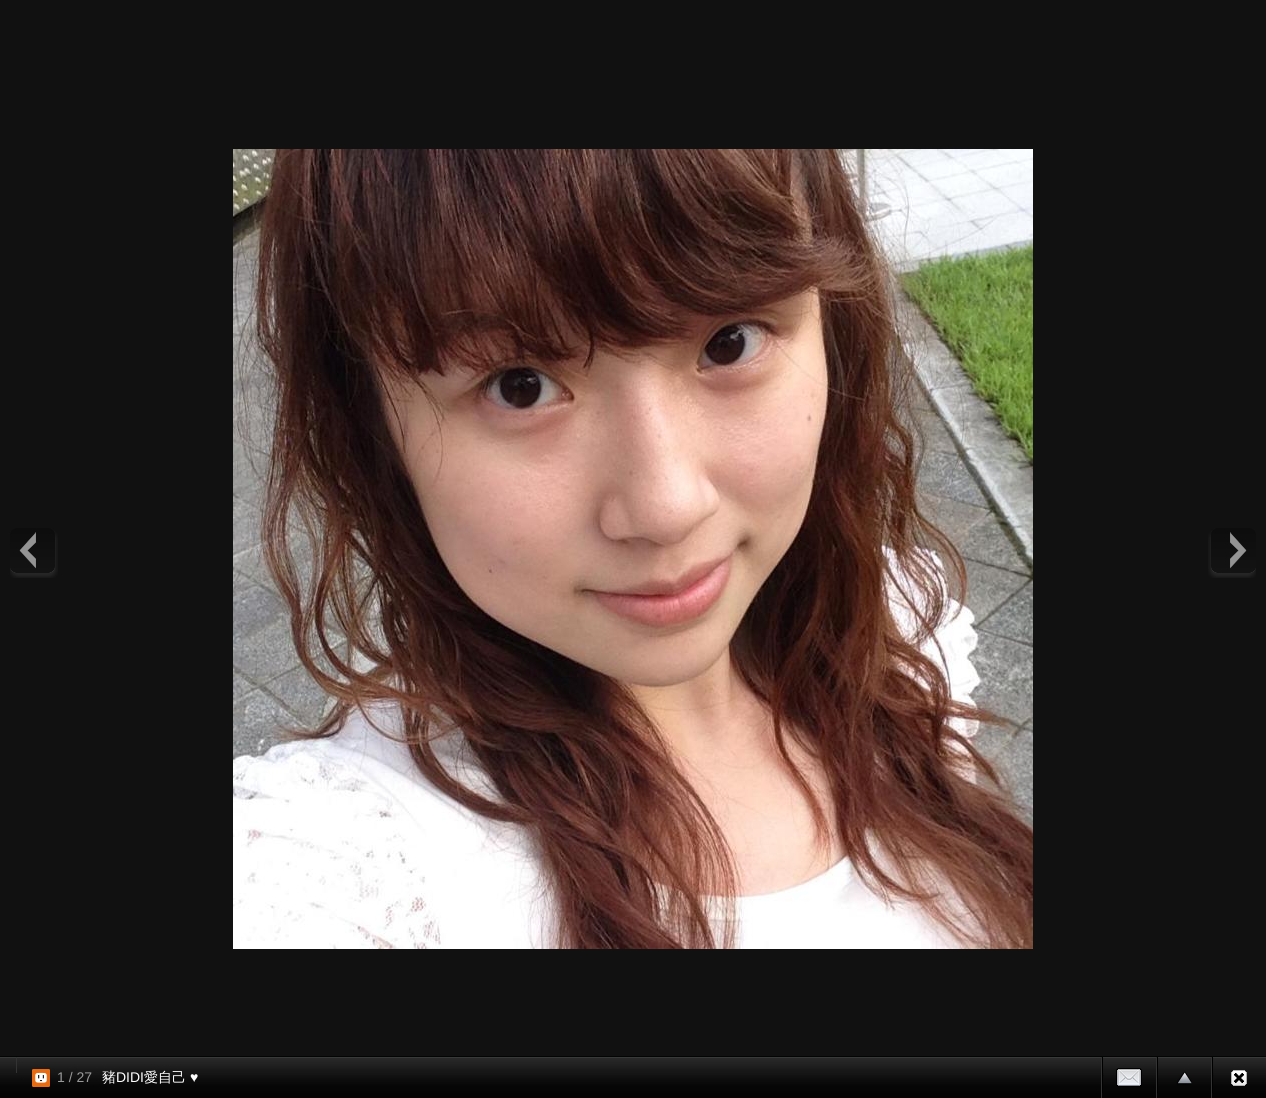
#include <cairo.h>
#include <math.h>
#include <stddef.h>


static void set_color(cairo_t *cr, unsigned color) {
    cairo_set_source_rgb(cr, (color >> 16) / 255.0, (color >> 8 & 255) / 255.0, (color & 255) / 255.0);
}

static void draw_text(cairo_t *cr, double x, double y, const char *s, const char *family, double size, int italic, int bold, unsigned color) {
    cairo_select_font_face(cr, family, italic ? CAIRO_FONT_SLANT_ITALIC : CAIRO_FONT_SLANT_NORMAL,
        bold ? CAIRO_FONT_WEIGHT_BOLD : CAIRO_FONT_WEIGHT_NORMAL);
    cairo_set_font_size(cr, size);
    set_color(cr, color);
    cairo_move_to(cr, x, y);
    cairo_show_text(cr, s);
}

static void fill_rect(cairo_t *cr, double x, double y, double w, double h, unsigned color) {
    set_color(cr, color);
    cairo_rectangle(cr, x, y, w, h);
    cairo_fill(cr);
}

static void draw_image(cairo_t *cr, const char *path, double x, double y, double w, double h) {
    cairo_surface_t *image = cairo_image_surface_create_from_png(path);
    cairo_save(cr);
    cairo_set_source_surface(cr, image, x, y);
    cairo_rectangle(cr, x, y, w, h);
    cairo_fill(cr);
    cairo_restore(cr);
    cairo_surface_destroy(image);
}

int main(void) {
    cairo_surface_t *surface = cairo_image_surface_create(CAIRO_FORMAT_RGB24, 1266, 1098);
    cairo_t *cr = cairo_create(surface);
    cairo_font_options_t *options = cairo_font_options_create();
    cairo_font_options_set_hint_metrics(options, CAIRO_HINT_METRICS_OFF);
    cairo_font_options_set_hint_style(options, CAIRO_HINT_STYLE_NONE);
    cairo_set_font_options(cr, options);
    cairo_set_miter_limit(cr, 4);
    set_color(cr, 0x111111);
    cairo_paint(cr);
    draw_image(cr, "assets/img1.png", 10, 528, 48, 50);
    draw_image(cr, "assets/img2.png", 233, 149, 800, 800);
    draw_image(cr, "assets/img3.png", 1208, 528, 48, 50);
    draw_image(cr, "assets/img4.png", 0, 1056, 1266, 42);
    fill_rect(cr, 16, 1057, 1, 16, 0x333333);
    draw_image(cr, "assets/img5.png", 32, 1069, 18, 18);
    draw_text(cr, 57, 1082, "1 / 27", "Liberation Sans", 14, 0, 0, 0x999999);
    draw_text(cr, 102, 1082, "豬", "WenQuanYi Zen Hei Medium", 14, 0, 0, 0xFFFFFF);
    draw_text(cr, 116, 1082, "DIDI", "Liberation Sans", 14, 0, 0, 0xFFFFFF);
    draw_text(cr, 144, 1082, "愛自己", "WenQuanYi Zen Hei Medium", 14, 0, 0, 0xFFFFFF);
    draw_text(cr, 190, 1082, "♥", "Liberation Sans", 14, 0, 0, 0xFFFFFF);
    fill_rect(cr, 1101, 1057, 1, 41, 0x333333);
    draw_image(cr, "assets/img6.png", 1102, 1057, 40, 36);
    fill_rect(cr, 1156, 1057, 1, 41, 0x333333);
    draw_image(cr, "assets/img7.png", 1157, 1057, 35, 36);
    fill_rect(cr, 1211, 1057, 1, 41, 0x333333);
    draw_image(cr, "assets/img8.png", 1212, 1057, 35, 36);
    cairo_surface_write_to_png(surface, "output.png");
    cairo_font_options_destroy(options);
    cairo_destroy(cr);
    cairo_surface_destroy(surface);
    return 0;
}
